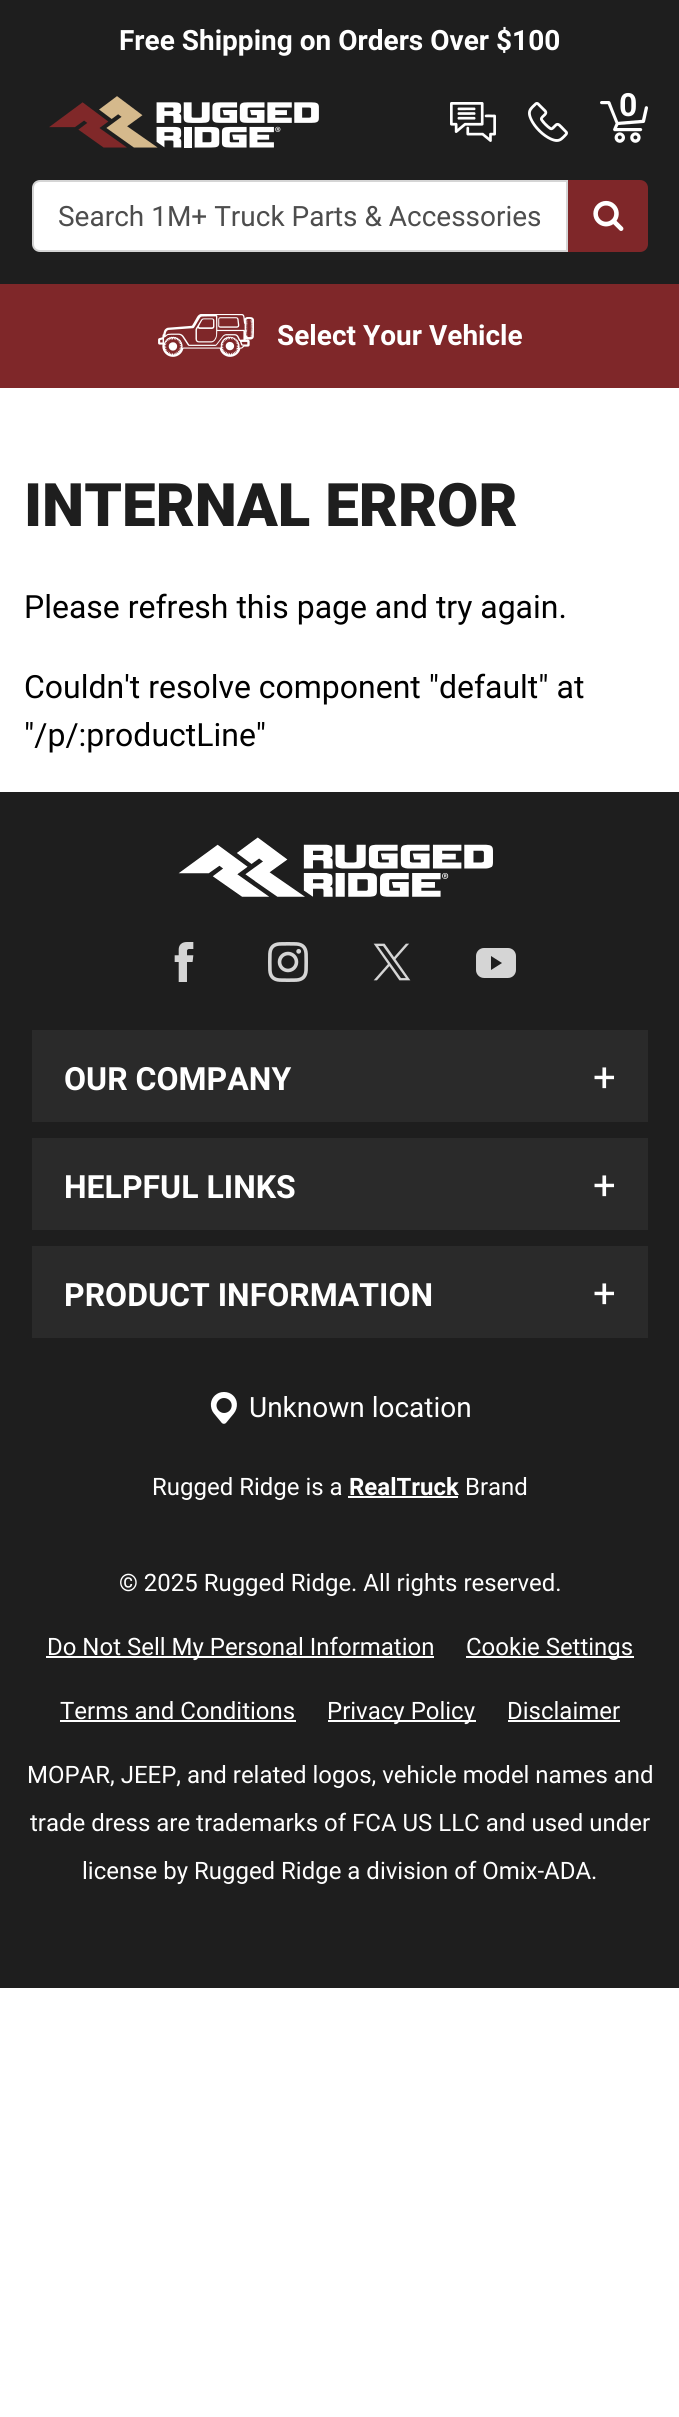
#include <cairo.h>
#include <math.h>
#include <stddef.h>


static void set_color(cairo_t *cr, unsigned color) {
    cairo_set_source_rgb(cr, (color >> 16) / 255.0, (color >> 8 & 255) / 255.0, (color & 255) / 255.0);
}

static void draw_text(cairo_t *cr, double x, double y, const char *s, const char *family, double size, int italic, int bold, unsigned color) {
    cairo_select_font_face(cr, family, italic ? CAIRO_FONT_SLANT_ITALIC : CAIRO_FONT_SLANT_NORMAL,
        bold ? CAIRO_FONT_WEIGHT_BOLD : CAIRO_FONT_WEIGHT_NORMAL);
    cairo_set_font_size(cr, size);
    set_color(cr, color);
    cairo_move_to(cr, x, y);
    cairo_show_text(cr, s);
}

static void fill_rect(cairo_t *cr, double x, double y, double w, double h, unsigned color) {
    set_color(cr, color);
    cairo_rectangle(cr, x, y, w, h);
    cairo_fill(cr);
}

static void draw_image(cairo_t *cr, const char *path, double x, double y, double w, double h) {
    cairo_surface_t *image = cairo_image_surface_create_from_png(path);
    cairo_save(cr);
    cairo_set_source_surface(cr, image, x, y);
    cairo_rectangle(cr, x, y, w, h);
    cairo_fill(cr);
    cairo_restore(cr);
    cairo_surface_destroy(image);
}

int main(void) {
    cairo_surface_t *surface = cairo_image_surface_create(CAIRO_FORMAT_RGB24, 679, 2417);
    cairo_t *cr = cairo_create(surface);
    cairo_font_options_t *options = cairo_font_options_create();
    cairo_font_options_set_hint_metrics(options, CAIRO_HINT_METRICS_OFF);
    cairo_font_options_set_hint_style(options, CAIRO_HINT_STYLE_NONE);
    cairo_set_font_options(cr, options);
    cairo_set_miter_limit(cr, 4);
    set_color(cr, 0xFFFFFF);
    cairo_paint(cr);
    fill_rect(cr, 0, 0, 679, 284, 0x1E1E1E);
    draw_text(cr, 119, 50, "Free Shipping on Orders Over $100", "Roboto", 28, 0, 1, 0xFFFFFF);
    draw_image(cr, "assets/img1.png", 49, 96, 270, 52);
    draw_image(cr, "assets/img2.png", 450, 102, 46, 40);
    draw_image(cr, "assets/img3.png", 528, 102, 40, 40);
    draw_image(cr, "assets/img4.png", 600, 101, 48, 42);
    draw_text(cr, 619, 116, "0", "Roboto", 32, 0, 1, 0xFFFFFF);
    cairo_new_path(cr);
    cairo_move_to(cr, 40, 181);
    cairo_line_to(cr, 567, 181);
    cairo_line_to(cr, 567, 251);
    cairo_line_to(cr, 40, 251);
    cairo_curve_to(cr, 36, 251, 33, 248, 33, 244);
    cairo_line_to(cr, 33, 188);
    cairo_curve_to(cr, 33, 184, 36, 181, 40, 181);
    cairo_close_path(cr);
    cairo_fill_preserve(cr);
    set_color(cr, 0xD5D5D5);
    cairo_stroke(cr);
    draw_text(cr, 58, 226, "Search 1M+ Truck Parts & Accessories", "Roboto", 28, 0, 0, 0x4D4D4D);
    set_color(cr, 0x7F2729);
    cairo_new_path(cr);
    cairo_move_to(cr, 569, 181);
    cairo_line_to(cr, 640, 181);
    cairo_curve_to(cr, 644, 181, 647, 184, 647, 188);
    cairo_line_to(cr, 647, 244);
    cairo_curve_to(cr, 647, 248, 644, 251, 640, 251);
    cairo_line_to(cr, 569, 251);
    cairo_close_path(cr);
    cairo_fill_preserve(cr);
    cairo_stroke(cr);
    draw_image(cr, "assets/img5.png", 593, 200, 31, 31);
    fill_rect(cr, 0, 284, 679, 104, 0x7F2729);
    draw_image(cr, "assets/img6.png", 158, 314, 96, 43);
    draw_text(cr, 277, 345, "Select Your Vehicle", "Roboto", 28, 0, 1, 0xFFFFFF);
    draw_text(cr, 24, 526, "INTERNAL ERROR", "Roboto Black", 60, 0, 0, 0x1E1E1E);
    draw_text(cr, 24, 618, "Please refresh this page and try again.", "Roboto", 32, 0, 0, 0x000000);
    draw_text(cr, 24, 698, "Couldn't resolve component \"default\" at", "Roboto", 32, 0, 0, 0x000000);
    draw_text(cr, 24, 746, "\"/p/:productLine\"", "Roboto", 32, 0, 0, 0x000000);
    fill_rect(cr, 0, 792, 679, 1196, 0x1E1E1E);
    draw_image(cr, "assets/img7.png", 178, 837, 315, 60);
    draw_image(cr, "assets/img8.png", 174, 942, 20, 40);
    draw_image(cr, "assets/img9.png", 268, 942, 40, 40);
    draw_image(cr, "assets/img10.png", 373, 943, 38, 38);
    draw_image(cr, "assets/img11.png", 476, 948, 40, 30);
    fill_rect(cr, 32, 1030, 616, 92, 0x2A2A2A);
    draw_text(cr, 64, 1090, "OUR COMPANY", "Roboto", 32, 0, 1, 0xFFFFFF);
    draw_text(cr, 593, 1091, "+", "Roboto", 40, 0, 0, 0xFFFFFF);
    fill_rect(cr, 32, 1138, 616, 92, 0x2A2A2A);
    draw_text(cr, 64, 1198, "HELPFUL LINKS", "Roboto", 32, 0, 1, 0xFFFFFF);
    draw_text(cr, 593, 1199, "+", "Roboto", 40, 0, 0, 0xFFFFFF);
    fill_rect(cr, 32, 1246, 616, 92, 0x2A2A2A);
    draw_text(cr, 64, 1306, "PRODUCT INFORMATION", "Roboto", 32, 0, 1, 0xFFFFFF);
    draw_text(cr, 593, 1307, "+", "Roboto", 40, 0, 0, 0xFFFFFF);
    draw_image(cr, "assets/img12.png", 210, 1392, 27, 32);
    draw_text(cr, 249, 1417, "Unknown location", "Roboto", 28, 0, 0, 0xFFFFFF);
    draw_text(cr, 152, 1495, "Rugged Ridge is a", "Roboto", 24, 0, 0, 0xFFFFFF);
    draw_text(cr, 349, 1495, "RealTruck", "Roboto", 24, 0, 1, 0xFFFFFF);
    fill_rect(cr, 348, 1496, 110, 2, 0xFFFFFF);
    draw_text(cr, 465, 1495, "Brand", "Roboto", 24, 0, 0, 0xFFFFFF);
    draw_text(cr, 119, 1591, "© 2025 Rugged Ridge. All rights reserved.", "Roboto", 24, 0, 0, 0xFFFFFF);
    fill_rect(cr, 46, 1656, 388, 2, 0xFFFFFF);
    draw_text(cr, 47, 1655, "Do Not Sell My Personal Information", "Roboto", 24, 0, 0, 0xFFFFFF);
    fill_rect(cr, 466, 1656, 168, 2, 0xFFFFFF);
    draw_text(cr, 466, 1655, "Cookie Settings", "Roboto", 24, 0, 0, 0xFFFFFF);
    draw_text(cr, 60, 1719, "Terms and Conditions", "Roboto", 24, 0, 0, 0xFFFFFF);
    fill_rect(cr, 60, 1720, 236, 2, 0xFFFFFF);
    fill_rect(cr, 328, 1720, 148, 2, 0xFFFFFF);
    draw_text(cr, 327, 1719, "Privacy Policy", "Roboto", 24, 0, 0, 0xFFFFFF);
    draw_text(cr, 507, 1719, "Disclaimer", "Roboto", 24, 0, 0, 0xFFFFFF);
    fill_rect(cr, 508, 1720, 112, 2, 0xFFFFFF);
    draw_text(cr, 27, 1783, "MOPAR, JEEP, and related logos, vehicle model names and", "Roboto", 24, 0, 0, 0xFFFFFF);
    draw_text(cr, 30, 1831, "trade dress are trademarks of FCA US LLC and used under", "Roboto", 24, 0, 0, 0xFFFFFF);
    draw_text(cr, 82, 1879, "license by Rugged Ridge a division of Omix-ADA.", "Roboto", 24, 0, 0, 0xFFFFFF);
    cairo_surface_write_to_png(surface, "output.png");
    cairo_font_options_destroy(options);
    cairo_destroy(cr);
    cairo_surface_destroy(surface);
    return 0;
}
